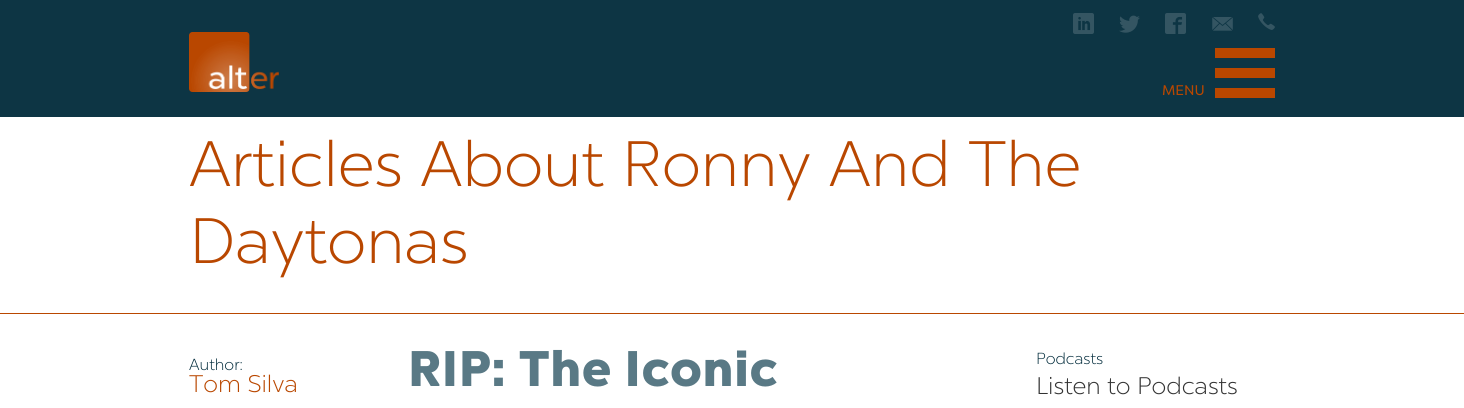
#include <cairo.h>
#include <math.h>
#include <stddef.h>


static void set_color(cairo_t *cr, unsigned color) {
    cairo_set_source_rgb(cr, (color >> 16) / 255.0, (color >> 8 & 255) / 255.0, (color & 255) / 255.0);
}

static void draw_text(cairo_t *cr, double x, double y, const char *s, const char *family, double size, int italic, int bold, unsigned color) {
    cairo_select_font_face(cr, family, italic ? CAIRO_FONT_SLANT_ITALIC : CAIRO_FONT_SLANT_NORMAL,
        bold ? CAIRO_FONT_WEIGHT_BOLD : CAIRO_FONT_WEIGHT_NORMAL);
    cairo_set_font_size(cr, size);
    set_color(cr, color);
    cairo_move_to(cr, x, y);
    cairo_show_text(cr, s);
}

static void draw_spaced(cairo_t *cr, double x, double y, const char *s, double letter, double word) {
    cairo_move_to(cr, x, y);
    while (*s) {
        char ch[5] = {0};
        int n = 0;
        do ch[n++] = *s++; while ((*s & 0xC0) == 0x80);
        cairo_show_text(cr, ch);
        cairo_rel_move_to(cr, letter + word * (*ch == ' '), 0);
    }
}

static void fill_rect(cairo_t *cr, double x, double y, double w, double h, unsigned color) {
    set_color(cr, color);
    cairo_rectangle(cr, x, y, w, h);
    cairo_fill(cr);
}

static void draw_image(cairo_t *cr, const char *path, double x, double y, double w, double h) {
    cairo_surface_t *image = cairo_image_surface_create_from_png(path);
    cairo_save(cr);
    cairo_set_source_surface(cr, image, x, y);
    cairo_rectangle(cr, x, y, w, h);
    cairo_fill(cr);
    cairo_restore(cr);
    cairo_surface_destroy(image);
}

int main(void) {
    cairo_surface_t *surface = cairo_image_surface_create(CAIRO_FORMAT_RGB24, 1464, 408);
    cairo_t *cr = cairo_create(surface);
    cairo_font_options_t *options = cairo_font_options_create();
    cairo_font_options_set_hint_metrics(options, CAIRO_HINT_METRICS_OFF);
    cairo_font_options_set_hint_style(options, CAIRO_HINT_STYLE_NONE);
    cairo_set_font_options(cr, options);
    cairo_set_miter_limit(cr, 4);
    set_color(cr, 0xFFFFFF);
    cairo_paint(cr);
    fill_rect(cr, 0, 0, 1464, 117, 0x0D3544);
    draw_image(cr, "assets/img1.png", 189, 32, 90, 60);
    draw_image(cr, "assets/img2.png", 1073, 13, 21, 21);
    draw_image(cr, "assets/img3.png", 1119, 15, 21, 18);
    draw_image(cr, "assets/img4.png", 1165, 13, 21, 21);
    draw_image(cr, "assets/img5.png", 1212, 17, 21, 14);
    draw_image(cr, "assets/img6.png", 1258, 13, 17, 17);
    draw_text(cr, 1162, 95, "MENU", "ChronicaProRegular", 14, 0, 0, 0xB94700);
    fill_rect(cr, 1215, 88, 60, 10, 0xB94700);
    fill_rect(cr, 1215, 48, 60, 10, 0xB94700);
    fill_rect(cr, 1215, 68, 60, 10, 0xB94700);
    fill_rect(cr, 0, 313, 1464, 1, 0xB94700);
    draw_text(cr, 189, 186, "Articles About Ronny And The", "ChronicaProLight", 64, 0, 0, 0xB94700);
    draw_text(cr, 189, 263, "Daytonas", "ChronicaProLight", 64, 0, 0, 0xB94700);
    draw_text(cr, 189, 370, "Author:", "ChronicaProLight", 16, 0, 0, 0x002A3A);
    draw_text(cr, 189, 392, "Tom Silva", "ChronicaProLight", 24, 0, 0, 0xB94700);
    cairo_select_font_face(cr, "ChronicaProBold", CAIRO_FONT_SLANT_NORMAL, CAIRO_FONT_WEIGHT_BOLD);
    cairo_set_font_size(cr, 48);
    set_color(cr, 0x597985);
    draw_spaced(cr, 408, 386, "RIP: The Iconic", 2, 0);
    draw_text(cr, 1036, 364, "Podcasts", "ChronicaProLight", 16, 0, 0, 0x002A3A);
    draw_text(cr, 1036, 394, "Listen to Podcasts", "ChronicaProLight", 24, 0, 0, 0x333333);
    cairo_surface_write_to_png(surface, "output.png");
    cairo_font_options_destroy(options);
    cairo_destroy(cr);
    cairo_surface_destroy(surface);
    return 0;
}
